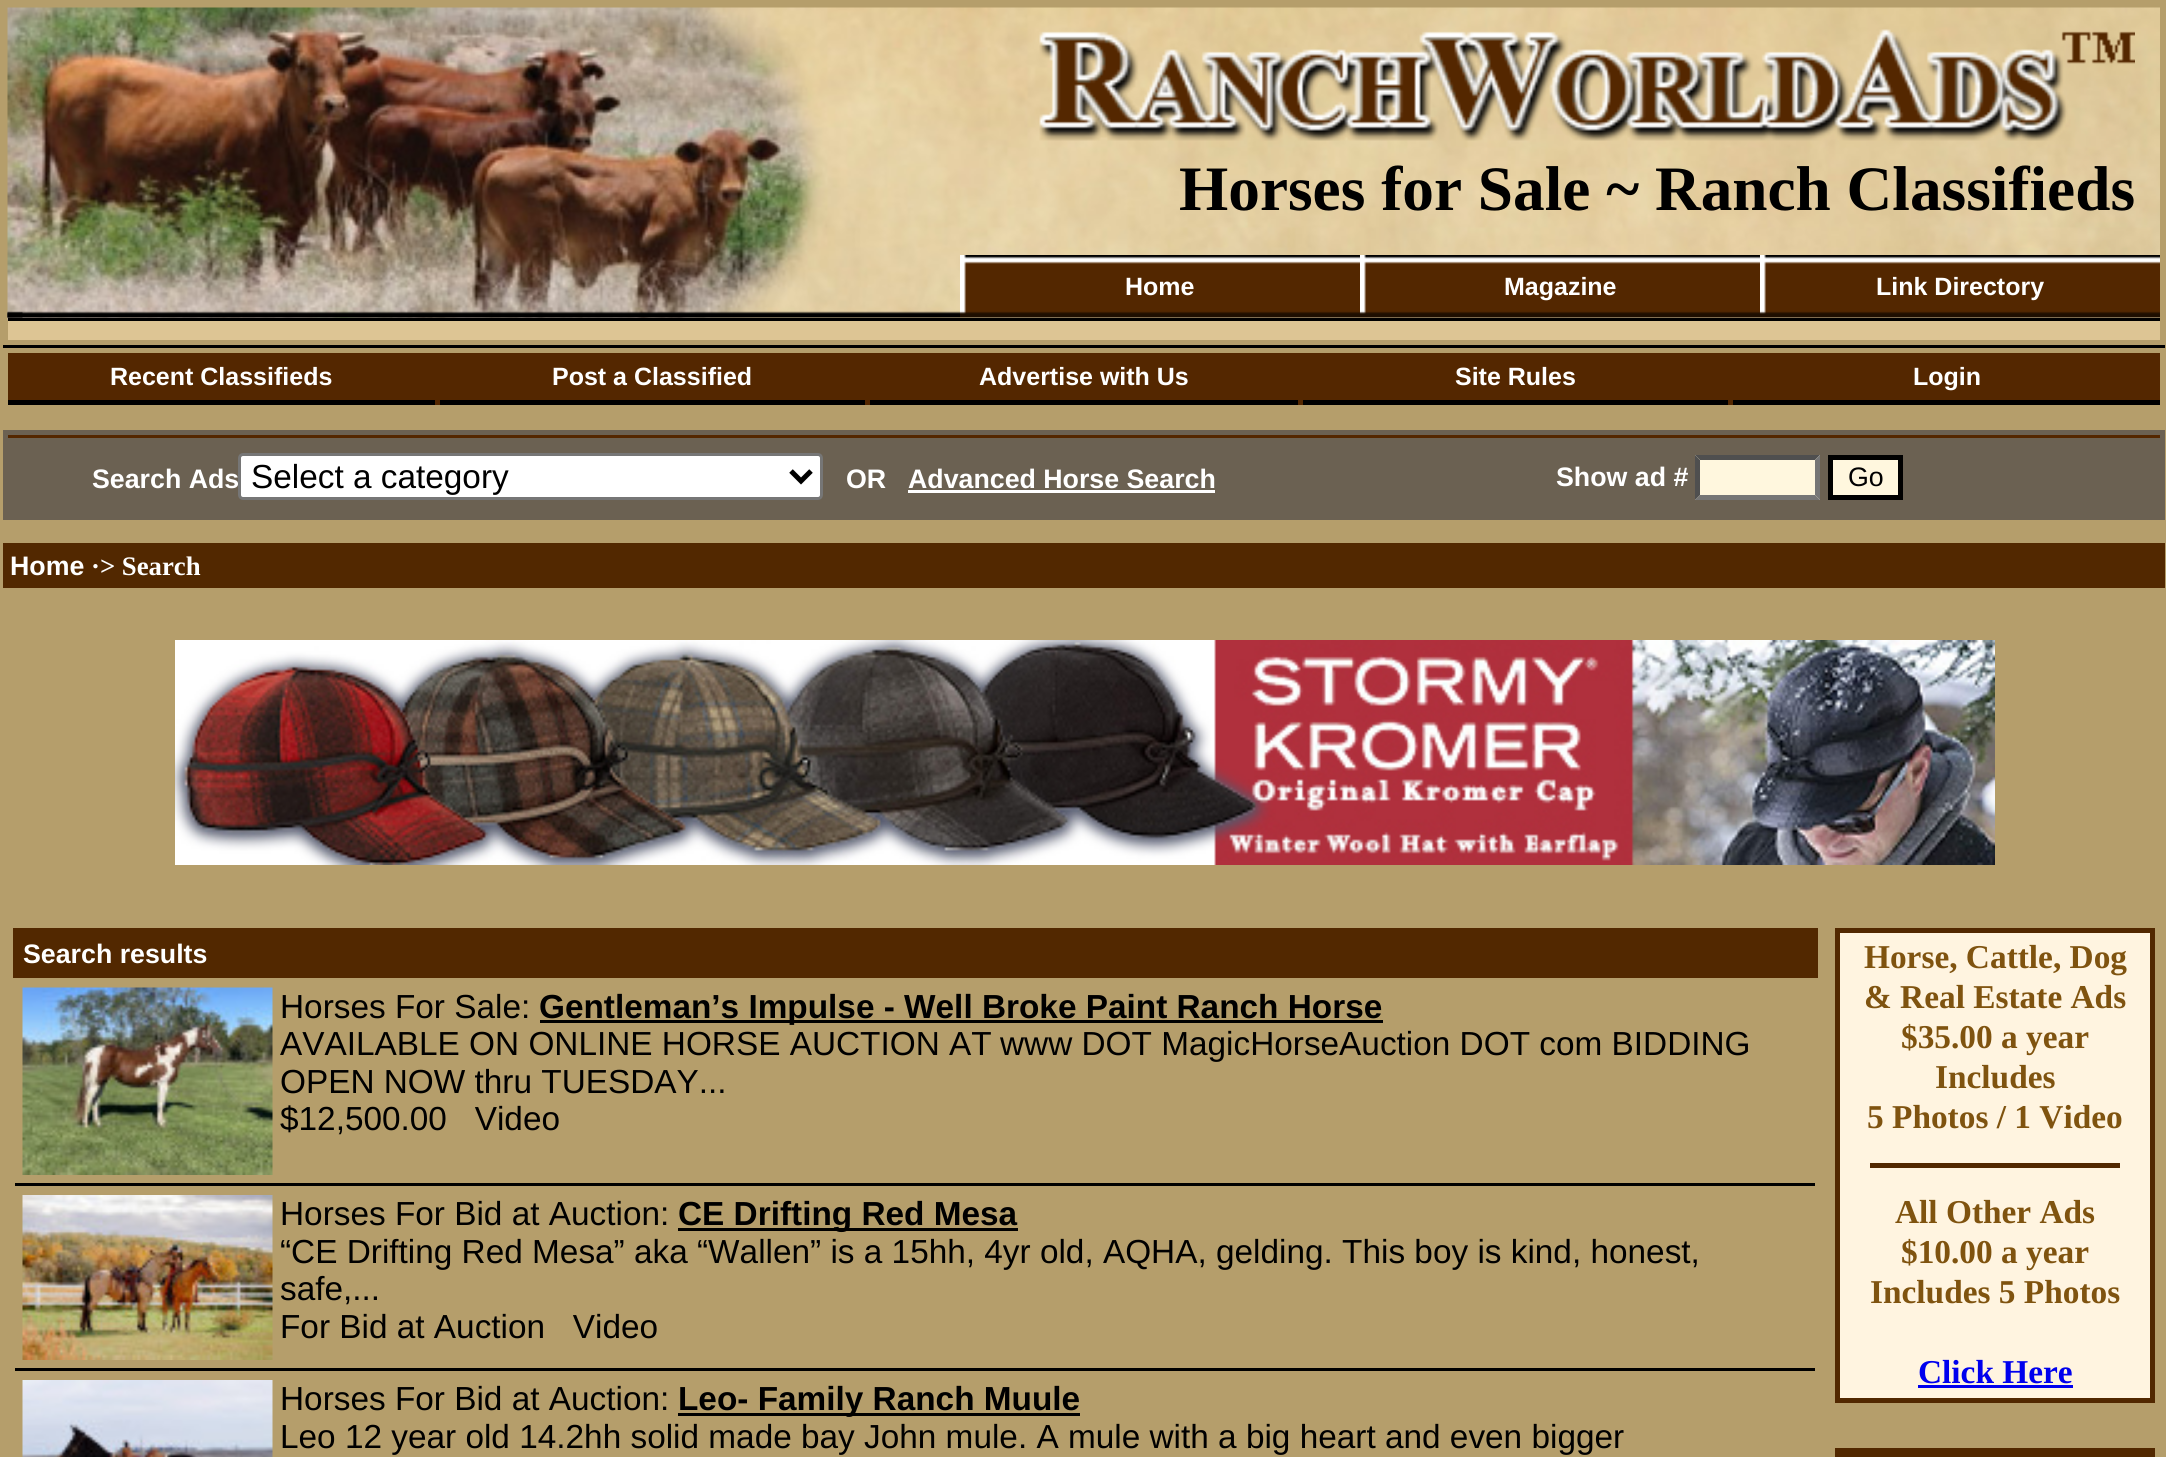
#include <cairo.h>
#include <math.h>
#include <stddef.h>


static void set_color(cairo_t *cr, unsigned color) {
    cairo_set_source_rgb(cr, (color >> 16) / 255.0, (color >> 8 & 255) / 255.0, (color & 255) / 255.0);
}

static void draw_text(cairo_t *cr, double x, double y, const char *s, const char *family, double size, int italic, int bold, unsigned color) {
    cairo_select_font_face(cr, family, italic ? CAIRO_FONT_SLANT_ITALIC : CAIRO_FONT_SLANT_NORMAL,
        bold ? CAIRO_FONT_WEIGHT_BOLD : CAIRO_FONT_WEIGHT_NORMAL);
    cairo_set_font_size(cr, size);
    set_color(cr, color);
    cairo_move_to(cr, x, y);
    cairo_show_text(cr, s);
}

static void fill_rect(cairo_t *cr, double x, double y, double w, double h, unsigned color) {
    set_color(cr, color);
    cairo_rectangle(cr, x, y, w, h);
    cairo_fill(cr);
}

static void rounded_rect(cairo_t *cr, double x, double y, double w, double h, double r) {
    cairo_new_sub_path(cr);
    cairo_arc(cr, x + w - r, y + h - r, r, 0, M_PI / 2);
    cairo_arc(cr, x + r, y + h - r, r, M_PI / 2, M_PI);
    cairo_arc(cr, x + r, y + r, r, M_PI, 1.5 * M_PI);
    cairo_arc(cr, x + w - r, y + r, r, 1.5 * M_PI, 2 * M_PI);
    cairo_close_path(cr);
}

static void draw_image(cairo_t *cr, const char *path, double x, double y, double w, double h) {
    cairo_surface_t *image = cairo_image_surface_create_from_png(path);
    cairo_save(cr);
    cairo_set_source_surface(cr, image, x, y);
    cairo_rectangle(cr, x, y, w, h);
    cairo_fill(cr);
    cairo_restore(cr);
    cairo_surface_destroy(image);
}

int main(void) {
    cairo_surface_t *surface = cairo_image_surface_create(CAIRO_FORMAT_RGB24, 2166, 1457);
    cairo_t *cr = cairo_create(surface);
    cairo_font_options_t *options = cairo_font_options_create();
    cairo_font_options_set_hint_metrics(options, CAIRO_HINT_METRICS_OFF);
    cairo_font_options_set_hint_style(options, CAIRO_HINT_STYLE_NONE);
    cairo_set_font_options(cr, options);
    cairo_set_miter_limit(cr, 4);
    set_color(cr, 0xB59E6B);
    cairo_paint(cr);
    fill_rect(cr, 8, 321, 2152, 19, 0xDDC594);
    draw_image(cr, "assets/img1.png", 7, 7, 2153, 313);
    draw_image(cr, "assets/img2.png", 1039, 29, 1096, 112);
    draw_text(cr, 1179, 210, "Horses for Sale ~ Ranch Classifieds", "Liberation Serif", 63.3, 0, 1, 0x000000);
    draw_image(cr, "assets/img3.png", 960, 255, 400, 63);
    draw_text(cr, 1125, 295, "Home", "Liberation Sans", 25, 0, 1, 0xFFFFFF);
    draw_image(cr, "assets/img4.png", 1360, 255, 400, 63);
    draw_text(cr, 1504, 295, "Magazine", "Liberation Sans", 25, 0, 1, 0xFFFFFF);
    draw_image(cr, "assets/img5.png", 1760, 255, 400, 63);
    draw_text(cr, 1876, 295, "Link Directory", "Liberation Sans", 25, 0, 1, 0xFFFFFF);
    draw_image(cr, "assets/img6.png", 7, 311, 953, 7);
    draw_image(cr, "assets/img7.png", 7, 311, 16, 7);
    fill_rect(cr, 8, 318, 2152, 3, 0x000000);
    fill_rect(cr, 3, 345, 2162, 3, 0x000000);
    fill_rect(cr, 8, 353, 2152, 52, 0x542700);
    fill_rect(cr, 8, 400, 427, 5, 0x000000);
    draw_text(cr, 110, 385, "Recent Classifieds", "Liberation Sans", 25, 0, 1, 0xFFFFFF);
    fill_rect(cr, 440, 400, 425, 5, 0x000000);
    draw_text(cr, 552, 385, "Post a Classified", "Liberation Sans", 25, 0, 1, 0xFFFFFF);
    fill_rect(cr, 870, 400, 428, 5, 0x000000);
    draw_text(cr, 979, 385, "Advertise with Us", "Liberation Sans", 25, 0, 1, 0xFFFFFF);
    fill_rect(cr, 1303, 400, 425, 5, 0x000000);
    draw_text(cr, 1455, 385, "Site Rules", "Liberation Sans", 25, 0, 1, 0xFFFFFF);
    fill_rect(cr, 1733, 400, 427, 5, 0x000000);
    draw_text(cr, 1913, 385, "Login", "Liberation Sans", 25, 0, 1, 0xFFFFFF);
    fill_rect(cr, 3, 430, 2162, 90, 0x6B6152);
    fill_rect(cr, 8, 435, 2152, 3, 0x542700);
    draw_text(cr, 92, 488, "Search Ads", "Liberation Sans", 26.75, 0, 1, 0xFFFFFF);
    rounded_rect(cr, 239.5, 454.5, 582, 44, 3.5);
    cairo_fill_preserve(cr);
    set_color(cr, 0x767676);
    cairo_set_line_width(cr, 3);
    cairo_stroke(cr);
    cairo_new_path(cr);
    cairo_move_to(cr, 791, 471);
    cairo_line_to(cr, 801, 481);
    cairo_line_to(cr, 811, 471);
    set_color(cr, 0x000000);
    cairo_set_line_width(cr, 5);
    cairo_stroke(cr);
    draw_text(cr, 251, 488, "Select a category", "Liberation Sans", 33.35, 0, 0, 0x000000);
    draw_text(cr, 846, 488, "OR", "Liberation Sans", 26.75, 0, 1, 0xFFFFFF);
    draw_text(cr, 908, 488, "Advanced Horse Search", "Liberation Sans", 26.75, 0, 1, 0xFFFFFF);
    fill_rect(cr, 908, 490, 307, 3, 0xFFFFFF);
    draw_text(cr, 1556, 486, "Show ad #", "Liberation Sans", 26.75, 0, 1, 0xFFFFFF);
    fill_rect(cr, 1695, 455, 125, 45, 0xFFF7DE);
    set_color(cr, 0x4F4F4F);
    cairo_new_path(cr);
    cairo_move_to(cr, 1695, 455);
    cairo_line_to(cr, 1820, 455);
    cairo_line_to(cr, 1815, 460);
    cairo_line_to(cr, 1700, 460);
    cairo_close_path(cr);
    cairo_fill(cr);
    set_color(cr, 0x767676);
    cairo_new_path(cr);
    cairo_move_to(cr, 1820, 455);
    cairo_line_to(cr, 1820, 500);
    cairo_line_to(cr, 1815, 495);
    cairo_line_to(cr, 1815, 460);
    cairo_close_path(cr);
    cairo_fill(cr);
    cairo_new_path(cr);
    cairo_move_to(cr, 1820, 500);
    cairo_line_to(cr, 1695, 500);
    cairo_line_to(cr, 1700, 495);
    cairo_line_to(cr, 1815, 495);
    cairo_close_path(cr);
    cairo_fill(cr);
    set_color(cr, 0x4F4F4F);
    cairo_new_path(cr);
    cairo_move_to(cr, 1695, 500);
    cairo_line_to(cr, 1695, 455);
    cairo_line_to(cr, 1700, 460);
    cairo_line_to(cr, 1700, 495);
    cairo_close_path(cr);
    cairo_fill(cr);
    set_color(cr, 0xFFF7DE);
    cairo_rectangle(cr, 1830.5, 457.5, 70, 40);
    cairo_fill_preserve(cr);
    set_color(cr, 0x000000);
    cairo_stroke(cr);
    draw_text(cr, 1848, 486, "Go", "Liberation Sans", 26.75, 0, 0, 0x000000);
    fill_rect(cr, 3, 543, 2162, 45, 0x522800);
    draw_text(cr, 10, 575, "Home", "Liberation Sans", 26.75, 0, 1, 0xFFFFFF);
    draw_text(cr, 91, 575, "·> Search", "Liberation Serif", 26.75, 0, 1, 0xFFFFFF);
    draw_image(cr, "assets/img8.png", 175, 640, 1820, 225);
    fill_rect(cr, 13, 928, 1805, 50, 0x522800);
    draw_text(cr, 23, 963, "Search results", "Liberation Sans", 26.75, 0, 1, 0xFFFFFF);
    fill_rect(cr, 15, 1183, 1800, 3, 0x000000);
    draw_image(cr, "assets/img9.png", 22, 987, 251, 188);
    draw_text(cr, 280, 1018, "Horses For Sale:", "Liberation Sans", 33.35, 0, 0, 0x000000);
    fill_rect(cr, 540, 1020, 843, 3, 0x000000);
    draw_text(cr, 539, 1018, "Gentleman’s Impulse - Well Broke Paint Ranch Horse", "Liberation Sans", 33.35, 0, 1, 0x000000);
    draw_text(cr, 280, 1055, "AVAILABLE ON ONLINE HORSE AUCTION AT", "Liberation Sans", 33.35, 0, 0, 0x000000);
    draw_text(cr, 1000, 1055, "www DOT MagicHorseAuction DOT com BIDDING", "Liberation Sans", 33.35, 0, 0, 0x000000);
    draw_text(cr, 280, 1093, "OPEN NOW thru TUESDAY...", "Liberation Sans", 33.35, 0, 0, 0x000000);
    draw_text(cr, 280, 1130, "$12,500.00   Video", "Liberation Sans", 33.35, 0, 0, 0x000000);
    fill_rect(cr, 15, 1368, 1800, 3, 0x000000);
    draw_image(cr, "assets/img10.png", 22, 1195, 251, 165);
    draw_text(cr, 280, 1225, "Horses For Bid at Auction:", "Liberation Sans", 33.35, 0, 0, 0x000000);
    fill_rect(cr, 678, 1228, 340, 3, 0x000000);
    draw_text(cr, 678, 1225, "CE Drifting Red Mesa", "Liberation Sans", 33.35, 0, 1, 0x000000);
    draw_text(cr, 280, 1263, "“CE Drifting Red Mesa” aka “Wallen” is a 15hh, 4yr old, AQHA, gelding. This boy is kind, honest,", "Liberation Sans", 33.35, 0, 0, 0x000000);
    draw_text(cr, 280, 1300, "safe,...", "Liberation Sans", 33.35, 0, 0, 0x000000);
    draw_text(cr, 280, 1338, "For Bid at Auction   Video", "Liberation Sans", 33.35, 0, 0, 0x000000);
    draw_image(cr, "assets/img11.png", 22, 1380, 251, 77);
    draw_text(cr, 280, 1410, "Horses For Bid at Auction:", "Liberation Sans", 33.35, 0, 0, 0x000000);
    fill_rect(cr, 678, 1413, 402, 3, 0x000000);
    draw_text(cr, 678, 1410, "Leo- Family Ranch Muule", "Liberation Sans", 33.35, 0, 1, 0x000000);
    draw_text(cr, 280, 1448, "Leo 12 year old 14.2hh solid made bay John mule. A mule with a big heart and even bigger", "Liberation Sans", 33.35, 0, 0, 0x000000);
    fill_rect(cr, 1835, 928, 320, 475, 0x522800);
    fill_rect(cr, 1840, 933, 310, 465, 0xFFF4E0);
    draw_text(cr, 1864, 968, "Horse, Cattle, Dog", "Liberation Serif", 33.35, 0, 1, 0x7F530F);
    draw_text(cr, 1864, 1008, "& Real Estate Ads", "Liberation Serif", 33.35, 0, 1, 0x7F530F);
    draw_text(cr, 1901, 1048, "$35.00 a year", "Liberation Serif", 33.35, 0, 1, 0x7F530F);
    draw_text(cr, 1935, 1088, "Includes", "Liberation Serif", 33.35, 0, 1, 0x7F530F);
    draw_text(cr, 1867, 1128, "5 Photos / 1 Video", "Liberation Serif", 33.35, 0, 1, 0x7F530F);
    fill_rect(cr, 1870, 1163, 250, 5, 0x522800);
    draw_text(cr, 1895, 1223, "All Other Ads", "Liberation Serif", 33.35, 0, 1, 0x7F530F);
    draw_text(cr, 1901, 1263, "$10.00 a year", "Liberation Serif", 33.35, 0, 1, 0x7F530F);
    draw_text(cr, 1870, 1303, "Includes 5 Photos", "Liberation Serif", 33.35, 0, 1, 0x7F530F);
    draw_text(cr, 1918, 1383, "Click Here", "Liberation Serif", 33.35, 0, 1, 0x0000EE);
    fill_rect(cr, 1918, 1385, 155, 3, 0x0000EE);
    fill_rect(cr, 1835, 1448, 320, 9, 0x522800);
    cairo_surface_write_to_png(surface, "output.png");
    cairo_font_options_destroy(options);
    cairo_destroy(cr);
    cairo_surface_destroy(surface);
    return 0;
}
